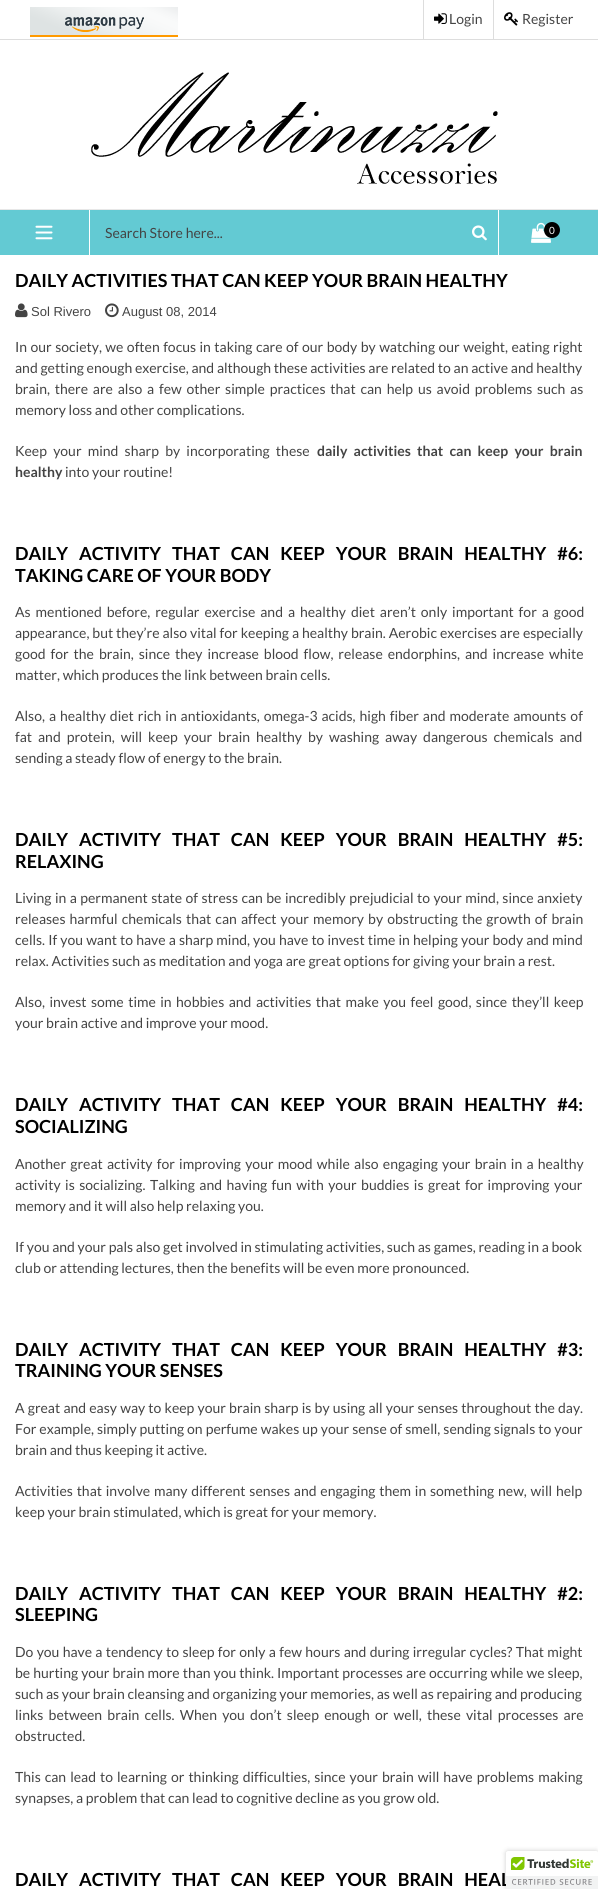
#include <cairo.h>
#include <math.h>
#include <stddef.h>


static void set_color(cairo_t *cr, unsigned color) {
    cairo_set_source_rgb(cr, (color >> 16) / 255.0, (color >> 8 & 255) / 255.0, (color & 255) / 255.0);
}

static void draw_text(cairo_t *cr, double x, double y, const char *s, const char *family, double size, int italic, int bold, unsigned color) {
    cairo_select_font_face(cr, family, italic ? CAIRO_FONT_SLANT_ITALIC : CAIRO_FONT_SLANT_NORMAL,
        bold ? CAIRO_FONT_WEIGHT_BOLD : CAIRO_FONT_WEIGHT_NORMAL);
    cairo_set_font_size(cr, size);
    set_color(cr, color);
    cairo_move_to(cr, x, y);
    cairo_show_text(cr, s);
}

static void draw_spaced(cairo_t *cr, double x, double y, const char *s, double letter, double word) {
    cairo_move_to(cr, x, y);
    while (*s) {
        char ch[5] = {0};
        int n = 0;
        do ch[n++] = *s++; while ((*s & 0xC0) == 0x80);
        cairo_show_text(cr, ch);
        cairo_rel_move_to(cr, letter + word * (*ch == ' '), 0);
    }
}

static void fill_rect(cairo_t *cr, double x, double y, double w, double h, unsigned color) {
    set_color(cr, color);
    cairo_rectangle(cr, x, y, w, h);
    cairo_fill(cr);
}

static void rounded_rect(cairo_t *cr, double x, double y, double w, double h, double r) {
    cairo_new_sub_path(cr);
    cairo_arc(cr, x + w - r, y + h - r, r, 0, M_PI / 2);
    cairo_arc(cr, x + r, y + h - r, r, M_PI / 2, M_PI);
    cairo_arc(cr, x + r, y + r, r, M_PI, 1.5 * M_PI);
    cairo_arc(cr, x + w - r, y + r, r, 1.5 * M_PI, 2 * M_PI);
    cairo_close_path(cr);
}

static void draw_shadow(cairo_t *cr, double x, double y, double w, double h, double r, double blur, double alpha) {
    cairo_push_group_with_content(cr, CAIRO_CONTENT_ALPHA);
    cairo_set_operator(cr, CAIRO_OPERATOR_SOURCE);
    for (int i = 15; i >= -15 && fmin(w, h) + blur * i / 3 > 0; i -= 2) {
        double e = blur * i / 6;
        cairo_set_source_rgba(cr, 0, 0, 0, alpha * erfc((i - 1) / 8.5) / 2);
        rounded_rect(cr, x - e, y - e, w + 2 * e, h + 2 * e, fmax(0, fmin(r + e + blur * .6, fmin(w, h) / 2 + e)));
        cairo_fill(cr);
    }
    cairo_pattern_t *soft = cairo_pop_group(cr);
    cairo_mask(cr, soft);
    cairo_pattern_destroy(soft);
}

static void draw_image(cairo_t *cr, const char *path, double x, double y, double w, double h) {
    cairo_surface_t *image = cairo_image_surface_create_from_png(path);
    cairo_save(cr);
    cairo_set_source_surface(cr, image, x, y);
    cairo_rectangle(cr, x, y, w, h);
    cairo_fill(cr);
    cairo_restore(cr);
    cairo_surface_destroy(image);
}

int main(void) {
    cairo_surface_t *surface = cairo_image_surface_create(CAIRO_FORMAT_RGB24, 598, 1889);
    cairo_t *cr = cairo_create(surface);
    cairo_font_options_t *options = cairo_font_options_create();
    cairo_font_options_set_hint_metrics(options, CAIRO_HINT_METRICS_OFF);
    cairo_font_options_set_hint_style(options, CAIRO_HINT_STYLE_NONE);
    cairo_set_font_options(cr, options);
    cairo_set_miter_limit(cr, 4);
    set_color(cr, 0xFFFFFF);
    cairo_paint(cr);
    fill_rect(cr, 0, 210, 598, 45, 0x63CAD3);
    fill_rect(cr, 89, 210, 1, 45, 0xFFFFFF);
    draw_image(cr, "assets/img1.png", 35, 225, 18, 15);
    draw_text(cr, 105, 238, "Search Store here...", "Lato", 14, 0, 0, 0x444444);
    draw_image(cr, "assets/img2.png", 472, 225, 15, 16);
    fill_rect(cr, 0, 209, 598, 1, 0xE7E7E7);
    fill_rect(cr, 0, 39, 598, 1, 0xDDDDDD);
    draw_image(cr, "assets/img3.png", 30, 7, 148, 30);
    fill_rect(cr, 423, 0, 1, 40, 0xDDDDDD);
    draw_image(cr, "assets/img4.png", 434, 13, 13, 11);
    draw_text(cr, 449, 24, "Login", "Lato", 14, 0, 0, 0x444444);
    fill_rect(cr, 493, 0, 1, 40, 0xDDDDDD);
    draw_image(cr, "assets/img5.png", 504, 12, 14, 14);
    draw_text(cr, 522, 24, "Register", "Lato", 14, 0, 0, 0x444444);
    draw_image(cr, "assets/img6.png", 91, 72, 407, 112);
    fill_rect(cr, 498, 210, 1, 45, 0xFFFFFF);
    draw_image(cr, "assets/img7.png", 531, 222, 20, 21);
    set_color(cr, 0x000000);
    cairo_arc(cr, 552, 230, 8, 0, 2 * M_PI);
    cairo_fill(cr);
    draw_text(cr, 549, 234, "0", "Lato", 10, 0, 0, 0xFFFFFF);
    draw_text(cr, 15, 287, "DAILY ACTIVITIES THAT CAN KEEP YOUR BRAIN HEALTHY", "Lato", 18, 0, 1, 0x000000);
    draw_image(cr, "assets/img8.png", 15, 303, 13, 15);
    draw_text(cr, 31, 316, "Sol Rivero", "Liberation Sans", 13, 0, 0, 0x444444);
    draw_image(cr, "assets/img9.png", 105, 303, 14, 15);
    draw_text(cr, 122, 316, "August 08, 2014", "Liberation Sans", 13, 0, 0, 0x444444);
    cairo_select_font_face(cr, "Lato", CAIRO_FONT_SLANT_NORMAL, CAIRO_FONT_WEIGHT_NORMAL);
    cairo_set_font_size(cr, 14);
    draw_spaced(cr, 15, 352, "In our society, we often focus in taking care of our body by watching our weight, eating right", 0, 0.75);
    draw_text(cr, 15, 373, "and getting enough exercise, and although these activities are related to an active and healthy", "Lato", 14, 0, 0, 0x444444);
    draw_spaced(cr, 15, 394, "brain, there are also a few other simple practices that can help us avoid problems such as", 0, 2.1);
    draw_text(cr, 15, 415, "memory loss and other complications.", "Lato", 14, 0, 0, 0x444444);
    draw_spaced(cr, 15, 456, "Keep your mind sharp by incorporating these", 0, 3.5);
    cairo_select_font_face(cr, "Lato", CAIRO_FONT_SLANT_NORMAL, CAIRO_FONT_WEIGHT_BOLD);
    draw_spaced(cr, 317, 456, "daily activities that can keep your brain", 0, 3.5);
    draw_text(cr, 15, 477, "healthy", "Lato", 14, 0, 1, 0x444444);
    draw_text(cr, 65, 477, "into your routine!", "Lato", 14, 0, 0, 0x444444);
    cairo_select_font_face(cr, "Lato", CAIRO_FONT_SLANT_NORMAL, CAIRO_FONT_WEIGHT_BOLD);
    cairo_set_font_size(cr, 18);
    set_color(cr, 0x000000);
    draw_spaced(cr, 15, 560, "DAILY ACTIVITY THAT CAN KEEP YOUR BRAIN HEALTHY #6:", 0, 7.5);
    draw_text(cr, 15, 582, "TAKING CARE OF YOUR BODY", "Lato", 18, 0, 1, 0x000000);
    cairo_select_font_face(cr, "Lato", CAIRO_FONT_SLANT_NORMAL, CAIRO_FONT_WEIGHT_NORMAL);
    cairo_set_font_size(cr, 14);
    set_color(cr, 0x444444);
    draw_spaced(cr, 15, 617, "As mentioned before, regular exercise and a healthy diet aren’t only important for a good", 0, 2.25);
    draw_spaced(cr, 15, 638, "appearance, but they’re also vital for keeping a healthy brain. Aerobic exercises are especially", 0, 0.25);
    draw_spaced(cr, 15, 659, "good for the brain, since they increase blood flow, release endorphins, and increase white", 0, 2.25);
    draw_text(cr, 15, 680, "matter, which produces the link between brain cells.", "Lato", 14, 0, 0, 0x444444);
    draw_spaced(cr, 15, 721, "Also, a healthy diet rich in antioxidants, omega-3 acids, high fiber and moderate amounts of", 0, 1.25);
    draw_spaced(cr, 15, 742, "fat and protein, will keep your brain healthy by washing away dangerous chemicals and", 0, 3.25);
    draw_text(cr, 15, 763, "sending a steady flow of energy to the brain.", "Lato", 14, 0, 0, 0x444444);
    cairo_select_font_face(cr, "Lato", CAIRO_FONT_SLANT_NORMAL, CAIRO_FONT_WEIGHT_BOLD);
    cairo_set_font_size(cr, 18);
    set_color(cr, 0x000000);
    draw_spaced(cr, 15, 846, "DAILY ACTIVITY THAT CAN KEEP YOUR BRAIN HEALTHY #5:", 0, 7.5);
    draw_text(cr, 15, 868, "RELAXING", "Lato", 18, 0, 1, 0x000000);
    cairo_select_font_face(cr, "Lato", CAIRO_FONT_SLANT_NORMAL, CAIRO_FONT_WEIGHT_NORMAL);
    cairo_set_font_size(cr, 14);
    set_color(cr, 0x444444);
    draw_spaced(cr, 15, 903, "Living in a permanent state of stress can be incredibly prejudicial to your mind, since anxiety", 0, 0.75);
    draw_spaced(cr, 15, 924, "releases harmful chemicals that can affect your memory by obstructing the growth of brain", 0, 1.4);
    draw_spaced(cr, 15, 945, "cells. If you want to have a sharp mind, you have to invest time in helping your body and mind", 0, 0.4);
    draw_text(cr, 15, 966, "relax. Activities such as meditation and yoga are great options for giving your brain a rest.", "Lato", 14, 0, 0, 0x444444);
    draw_spaced(cr, 15, 1007, "Also, invest some time in hobbies and activities that make you feel good, since they’ll keep", 0, 1.75);
    draw_text(cr, 15, 1028, "your brain active and improve your mood.", "Lato", 14, 0, 0, 0x444444);
    cairo_select_font_face(cr, "Lato", CAIRO_FONT_SLANT_NORMAL, CAIRO_FONT_WEIGHT_BOLD);
    cairo_set_font_size(cr, 18);
    set_color(cr, 0x000000);
    draw_spaced(cr, 15, 1111, "DAILY ACTIVITY THAT CAN KEEP YOUR BRAIN HEALTHY #4:", 0, 7.5);
    draw_text(cr, 15, 1133, "SOCIALIZING", "Lato", 18, 0, 1, 0x000000);
    cairo_select_font_face(cr, "Lato", CAIRO_FONT_SLANT_NORMAL, CAIRO_FONT_WEIGHT_NORMAL);
    cairo_set_font_size(cr, 14);
    set_color(cr, 0x444444);
    draw_spaced(cr, 15, 1169, "Another great activity for improving your mood while also engaging your brain in a healthy", 0, 1.5);
    draw_spaced(cr, 15, 1190, "activity is socializing. Talking and having fun with your buddies is great for improving your", 0, 1.8);
    draw_text(cr, 15, 1211, "memory and it will also help relaxing you.", "Lato", 14, 0, 0, 0x444444);
    draw_text(cr, 15, 1252, "If you and your pals also get involved in stimulating activities, such as games, reading in a book", "Lato", 14, 0, 0, 0x444444);
    draw_text(cr, 15, 1273, "club or attending lectures, then the benefits will be even more pronounced.", "Lato", 14, 0, 0, 0x444444);
    cairo_select_font_face(cr, "Lato", CAIRO_FONT_SLANT_NORMAL, CAIRO_FONT_WEIGHT_BOLD);
    cairo_set_font_size(cr, 18);
    set_color(cr, 0x000000);
    draw_spaced(cr, 15, 1356, "DAILY ACTIVITY THAT CAN KEEP YOUR BRAIN HEALTHY #3:", 0, 7.5);
    draw_text(cr, 15, 1377, "TRAINING YOUR SENSES", "Lato", 18, 0, 1, 0x000000);
    cairo_select_font_face(cr, "Lato", CAIRO_FONT_SLANT_NORMAL, CAIRO_FONT_WEIGHT_NORMAL);
    cairo_set_font_size(cr, 14);
    set_color(cr, 0x444444);
    draw_spaced(cr, 15, 1413, "A great and easy way to keep your brain sharp is by using all your senses throughout the day.", 0, 0.5);
    draw_spaced(cr, 15, 1434, "For example, simply putting on perfume wakes up your sense of smell, sending signals to your", 0, 0.3);
    draw_text(cr, 15, 1455, "brain and thus keeping it active.", "Lato", 14, 0, 0, 0x444444);
    draw_spaced(cr, 15, 1496, "Activities that involve many different senses and engaging them in something new, will help", 0, 1.1);
    draw_text(cr, 15, 1517, "keep your brain stimulated, which is great for your memory.", "Lato", 14, 0, 0, 0x444444);
    cairo_select_font_face(cr, "Lato", CAIRO_FONT_SLANT_NORMAL, CAIRO_FONT_WEIGHT_BOLD);
    cairo_set_font_size(cr, 18);
    set_color(cr, 0x000000);
    draw_spaced(cr, 15, 1600, "DAILY ACTIVITY THAT CAN KEEP YOUR BRAIN HEALTHY #2:", 0, 7.5);
    draw_text(cr, 15, 1621, "SLEEPING", "Lato", 18, 0, 1, 0x000000);
    cairo_select_font_face(cr, "Lato", CAIRO_FONT_SLANT_NORMAL, CAIRO_FONT_WEIGHT_NORMAL);
    cairo_set_font_size(cr, 14);
    set_color(cr, 0x444444);
    draw_spaced(cr, 15, 1657, "Do you have a tendency to sleep for only a few hours and during irregular cycles? That might", 0, 0.6);
    draw_spaced(cr, 15, 1678, "be hurting your brain more than you think. Important processes are occurring while we sleep,", 0, 0.3);
    draw_text(cr, 15, 1699, "such as your brain cleansing and organizing your memories, as well as repairing and producing", "Lato", 14, 0, 0, 0x444444);
    draw_spaced(cr, 15, 1720, "links between brain cells. When you don’t sleep enough or well, these vital processes are", 0, 2.5);
    draw_text(cr, 15, 1741, "obstructed.", "Lato", 14, 0, 0, 0x444444);
    draw_spaced(cr, 15, 1782, "This can lead to learning or thinking difficulties, since your brain will have problems making", 0, 1.3);
    draw_text(cr, 15, 1803, "synapses, a problem that can lead to cognitive decline as you grow old.", "Lato", 14, 0, 0, 0x444444);
    cairo_select_font_face(cr, "Lato", CAIRO_FONT_SLANT_NORMAL, CAIRO_FONT_WEIGHT_BOLD);
    cairo_set_font_size(cr, 18);
    set_color(cr, 0x000000);
    draw_spaced(cr, 15, 1886, "DAILY ACTIVITY THAT CAN KEEP YOUR BRAIN HEAL", 0, 7.5);
    set_color(cr, 0x000000);
    draw_shadow(cr, 506, 1851, 92, 38, 2, 2.5, 0.2);
    set_color(cr, 0xFFFFFF);
    cairo_new_path(cr);
    cairo_move_to(cr, 508, 1851);
    cairo_line_to(cr, 598, 1851);
    cairo_line_to(cr, 598, 1889);
    cairo_line_to(cr, 506, 1889);
    cairo_line_to(cr, 506, 1853);
    cairo_curve_to(cr, 506, 1852, 507, 1851, 508, 1851);
    cairo_close_path(cr);
    cairo_fill(cr);
    draw_image(cr, "assets/img10.png", 506, 1851, 92, 38);
    cairo_surface_write_to_png(surface, "output.png");
    cairo_font_options_destroy(options);
    cairo_destroy(cr);
    cairo_surface_destroy(surface);
    return 0;
}
